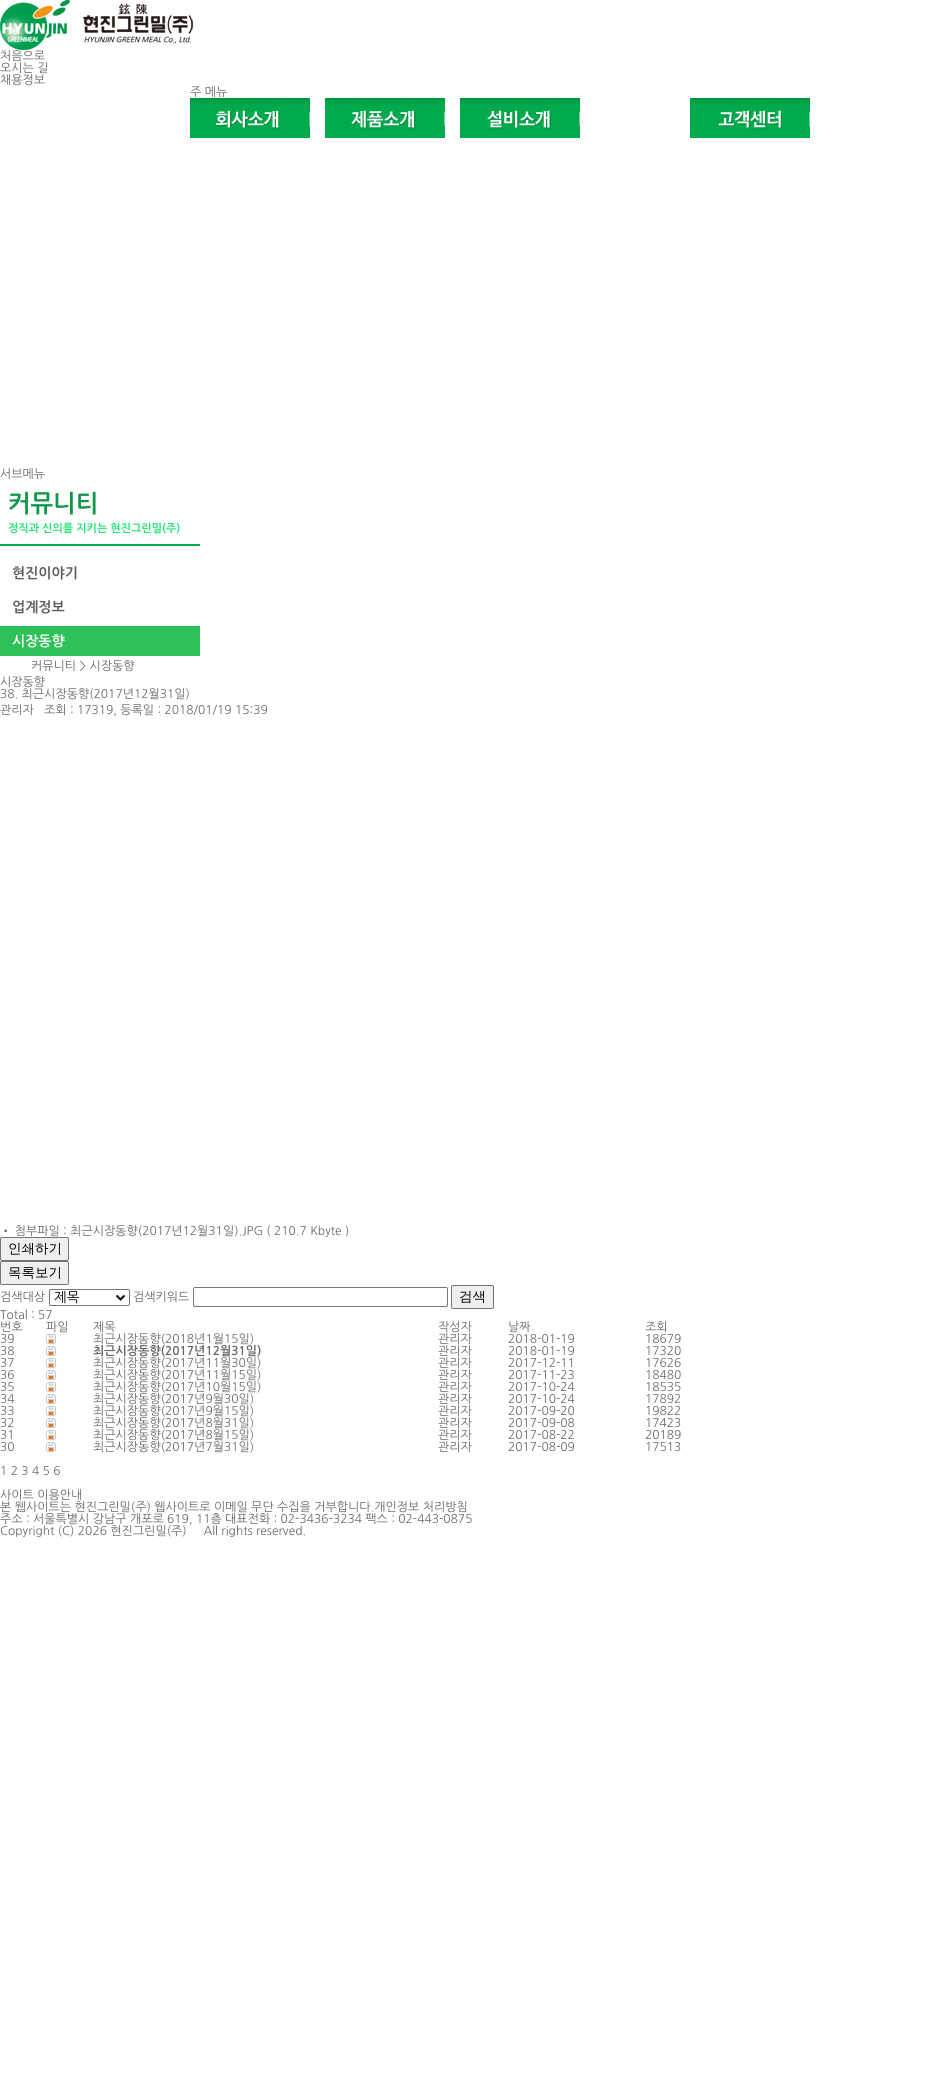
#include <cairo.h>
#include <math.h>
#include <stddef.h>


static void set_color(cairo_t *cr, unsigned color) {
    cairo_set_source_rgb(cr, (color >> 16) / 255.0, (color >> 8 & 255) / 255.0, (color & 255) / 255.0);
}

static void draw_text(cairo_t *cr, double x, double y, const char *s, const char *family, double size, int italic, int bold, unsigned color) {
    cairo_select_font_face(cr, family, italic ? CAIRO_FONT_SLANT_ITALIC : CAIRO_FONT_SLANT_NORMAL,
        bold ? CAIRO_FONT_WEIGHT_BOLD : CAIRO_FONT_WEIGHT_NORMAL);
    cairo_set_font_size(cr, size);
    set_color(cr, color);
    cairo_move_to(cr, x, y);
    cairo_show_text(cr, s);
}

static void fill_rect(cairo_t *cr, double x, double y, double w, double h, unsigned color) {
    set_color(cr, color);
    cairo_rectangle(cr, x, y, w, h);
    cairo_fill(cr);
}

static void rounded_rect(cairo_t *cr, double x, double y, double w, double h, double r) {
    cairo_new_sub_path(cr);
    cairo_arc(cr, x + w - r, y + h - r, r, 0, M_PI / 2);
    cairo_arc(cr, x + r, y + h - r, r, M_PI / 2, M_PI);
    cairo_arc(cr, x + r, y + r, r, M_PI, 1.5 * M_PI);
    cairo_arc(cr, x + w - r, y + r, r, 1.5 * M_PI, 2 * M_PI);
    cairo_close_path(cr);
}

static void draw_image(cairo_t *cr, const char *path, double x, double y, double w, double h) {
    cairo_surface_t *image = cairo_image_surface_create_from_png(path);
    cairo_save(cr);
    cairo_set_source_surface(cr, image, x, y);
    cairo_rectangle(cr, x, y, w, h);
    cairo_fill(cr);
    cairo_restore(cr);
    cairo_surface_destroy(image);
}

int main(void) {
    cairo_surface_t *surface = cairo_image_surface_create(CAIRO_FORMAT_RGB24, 944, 2095);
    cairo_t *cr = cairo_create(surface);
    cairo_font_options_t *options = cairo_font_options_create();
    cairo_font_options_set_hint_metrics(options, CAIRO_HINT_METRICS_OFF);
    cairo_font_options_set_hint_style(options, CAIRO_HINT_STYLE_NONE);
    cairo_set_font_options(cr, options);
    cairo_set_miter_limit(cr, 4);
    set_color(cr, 0xFFFFFF);
    cairo_paint(cr);
    draw_image(cr, "assets/img1.png", 0, 0, 193, 50);
    draw_text(cr, 0, 60, "처음으로", "NanumGothic", 12, 0, 0, 0x666666);
    draw_text(cr, 0, 72, "오시는 길", "NanumGothic", 12, 0, 0, 0x666666);
    draw_text(cr, 0, 84, "채용정보", "NanumGothic", 12, 0, 0, 0x666666);
    draw_text(cr, 190, 96, "주 메뉴", "NanumGothic", 12, 0, 0, 0x666666);
    draw_image(cr, "assets/img2.png", 190, 98, 120, 40);
    draw_image(cr, "assets/img3.png", 325, 98, 120, 40);
    draw_image(cr, "assets/img4.png", 460, 98, 120, 40);
    draw_image(cr, "assets/img5.png", 690, 98, 120, 40);
    draw_text(cr, 0, 478, "서브메뉴", "NanumGothic", 12, 0, 0, 0x666666);
    fill_rect(cr, 0, 544, 200, 2, 0x00AB4B);
    draw_text(cr, 8, 512, "커뮤니티", "NanumGothic", 24, 0, 1, 0x0E9649);
    draw_text(cr, 8, 532, "정직과 신의를 지키는 현진그린밀(주)", "NanumGothic", 11, 0, 1, 0x1CE373);
    draw_text(cr, 12, 578, "현진이야기", "NanumGothic", 14, 0, 1, 0x5A5A5A);
    draw_text(cr, 12, 612, "업계정보", "NanumGothic", 14, 0, 1, 0x5A5A5A);
    fill_rect(cr, 0, 626, 200, 30, 0x2DC157);
    draw_text(cr, 12, 646, "시장동향", "NanumGothic", 14, 0, 1, 0xFFFFFF);
    draw_text(cr, 31, 670, "커뮤니티 > 시장동향", "NanumGothic", 12, 0, 0, 0x666666);
    draw_text(cr, 0, 686, "시장동향", "NanumGothic", 12, 0, 0, 0x666666);
    draw_text(cr, 0, 698, "38. 최근시장동향(2017년12월31일)", "NanumGothic", 12, 0, 0, 0x666666);
    draw_text(cr, 0, 714, "관리자", "NanumGothic", 12, 0, 0, 0x666666);
    draw_text(cr, 44, 714, "조회 : 17319, 등록일 : 2018/01/19 15:39", "NanumGothic", 12, 0, 0, 0x666666);
    draw_text(cr, 0, 1235, "• 첨부파일 : 최근시장동향(2017년12월31일).JPG ( 210.7 Kbyte )", "NanumGothic", 12, 0, 0, 0x666666);
    set_color(cr, 0xEFEFEF);
    rounded_rect(cr, 0.5, 1237.5, 68, 23, 1.5);
    cairo_fill_preserve(cr);
    set_color(cr, 0x767676);
    cairo_set_line_width(cr, 1);
    cairo_stroke(cr);
    draw_text(cr, 8, 1253, "인쇄하기", "WenQuanYi Zen Hei Medium", 13.5, 0, 0, 0x000000);
    set_color(cr, 0xEFEFEF);
    rounded_rect(cr, 0.5, 1261.5, 68, 23, 1.5);
    cairo_fill_preserve(cr);
    set_color(cr, 0x767676);
    cairo_stroke(cr);
    draw_text(cr, 8, 1277, "목록보기", "WenQuanYi Zen Hei Medium", 13.5, 0, 0, 0x000000);
    draw_text(cr, 0, 1301, "검색대상", "NanumGothic", 12, 0, 0, 0x666666);
    rounded_rect(cr, 49.5, 1289.5, 80, 16, 1.5);
    set_color(cr, 0x767676);
    cairo_stroke(cr);
    cairo_new_path(cr);
    cairo_move_to(cr, 116.5, 1295.5);
    cairo_line_to(cr, 120.5, 1299.5);
    cairo_line_to(cr, 124.5, 1295.5);
    set_color(cr, 0x000000);
    cairo_set_line_width(cr, 2);
    cairo_stroke(cr);
    draw_text(cr, 54, 1302, "제목", "NanumGothic", 13.5, 0, 0, 0x000000);
    draw_text(cr, 133, 1301, "검색키워드", "NanumGothic", 12, 0, 0, 0x666666);
    rounded_rect(cr, 193.5, 1287.5, 254, 19, 1.5);
    set_color(cr, 0x767676);
    cairo_set_line_width(cr, 1);
    cairo_stroke(cr);
    set_color(cr, 0xEFEFEF);
    rounded_rect(cr, 451.5, 1285.5, 42, 23, 1.5);
    cairo_fill_preserve(cr);
    set_color(cr, 0x767676);
    cairo_stroke(cr);
    draw_text(cr, 459, 1301, "검색", "WenQuanYi Zen Hei Medium", 13.5, 0, 0, 0x000000);
    draw_text(cr, 0, 1319, "Total : 57", "NanumGothic", 12, 0, 0, 0x666666);
    draw_text(cr, 0, 1331, "번호", "NanumGothic", 12, 0, 0, 0x666666);
    draw_text(cr, 46, 1331, "파일", "NanumGothic", 12, 0, 0, 0x666666);
    draw_text(cr, 93, 1331, "제목", "NanumGothic", 12, 0, 0, 0x666666);
    draw_text(cr, 438, 1331, "작성자", "NanumGothic", 12, 0, 0, 0x666666);
    draw_text(cr, 508, 1331, "날짜", "NanumGothic", 12, 0, 0, 0x666666);
    draw_text(cr, 645, 1331, "조회", "NanumGothic", 12, 0, 0, 0x666666);
    draw_text(cr, 0, 1343, "39", "NanumGothic", 12, 0, 0, 0x666666);
    draw_image(cr, "assets/img6.png", 46, 1334, 10, 10);
    draw_text(cr, 93, 1343, "최근시장동향(2018년1월15일)", "NanumGothic", 12, 0, 0, 0x666666);
    draw_text(cr, 438, 1343, "관리자", "NanumGothic", 12, 0, 0, 0x666666);
    draw_text(cr, 508, 1343, "2018-01-19", "NanumGothic", 12, 0, 0, 0x666666);
    draw_text(cr, 645, 1343, "18679", "NanumGothic", 12, 0, 0, 0x666666);
    draw_text(cr, 0, 1355, "38", "NanumGothic", 12, 0, 0, 0x666666);
    draw_image(cr, "assets/img6.png", 46, 1346, 10, 10);
    draw_text(cr, 93, 1355, "최근시장동향(2017년12월31일)", "NanumGothic", 12, 0, 1, 0x666666);
    draw_text(cr, 438, 1355, "관리자", "NanumGothic", 12, 0, 0, 0x666666);
    draw_text(cr, 508, 1355, "2018-01-19", "NanumGothic", 12, 0, 0, 0x666666);
    draw_text(cr, 645, 1355, "17320", "NanumGothic", 12, 0, 0, 0x666666);
    draw_text(cr, 0, 1367, "37", "NanumGothic", 12, 0, 0, 0x666666);
    draw_image(cr, "assets/img6.png", 46, 1358, 10, 10);
    draw_text(cr, 93, 1367, "최근시장동향(2017년11월30일)", "NanumGothic", 12, 0, 0, 0x666666);
    draw_text(cr, 438, 1367, "관리자", "NanumGothic", 12, 0, 0, 0x666666);
    draw_text(cr, 508, 1367, "2017-12-11", "NanumGothic", 12, 0, 0, 0x666666);
    draw_text(cr, 645, 1367, "17626", "NanumGothic", 12, 0, 0, 0x666666);
    draw_text(cr, 0, 1379, "36", "NanumGothic", 12, 0, 0, 0x666666);
    draw_image(cr, "assets/img6.png", 46, 1370, 10, 10);
    draw_text(cr, 93, 1379, "최근시장동향(2017년11월15일)", "NanumGothic", 12, 0, 0, 0x666666);
    draw_text(cr, 438, 1379, "관리자", "NanumGothic", 12, 0, 0, 0x666666);
    draw_text(cr, 508, 1379, "2017-11-23", "NanumGothic", 12, 0, 0, 0x666666);
    draw_text(cr, 645, 1379, "18480", "NanumGothic", 12, 0, 0, 0x666666);
    draw_text(cr, 0, 1391, "35", "NanumGothic", 12, 0, 0, 0x666666);
    draw_image(cr, "assets/img6.png", 46, 1382, 10, 10);
    draw_text(cr, 93, 1391, "최근시장동향(2017년10월15일)", "NanumGothic", 12, 0, 0, 0x666666);
    draw_text(cr, 438, 1391, "관리자", "NanumGothic", 12, 0, 0, 0x666666);
    draw_text(cr, 508, 1391, "2017-10-24", "NanumGothic", 12, 0, 0, 0x666666);
    draw_text(cr, 645, 1391, "18535", "NanumGothic", 12, 0, 0, 0x666666);
    draw_text(cr, 0, 1403, "34", "NanumGothic", 12, 0, 0, 0x666666);
    draw_image(cr, "assets/img6.png", 46, 1394, 10, 10);
    draw_text(cr, 93, 1403, "최근시장동향(2017년9월30일)", "NanumGothic", 12, 0, 0, 0x666666);
    draw_text(cr, 438, 1403, "관리자", "NanumGothic", 12, 0, 0, 0x666666);
    draw_text(cr, 508, 1403, "2017-10-24", "NanumGothic", 12, 0, 0, 0x666666);
    draw_text(cr, 645, 1403, "17892", "NanumGothic", 12, 0, 0, 0x666666);
    draw_text(cr, 0, 1415, "33", "NanumGothic", 12, 0, 0, 0x666666);
    draw_image(cr, "assets/img6.png", 46, 1406, 10, 10);
    draw_text(cr, 93, 1415, "최근시장동향(2017년9월15일)", "NanumGothic", 12, 0, 0, 0x666666);
    draw_text(cr, 438, 1415, "관리자", "NanumGothic", 12, 0, 0, 0x666666);
    draw_text(cr, 508, 1415, "2017-09-20", "NanumGothic", 12, 0, 0, 0x666666);
    draw_text(cr, 645, 1415, "19822", "NanumGothic", 12, 0, 0, 0x666666);
    draw_text(cr, 0, 1427, "32", "NanumGothic", 12, 0, 0, 0x666666);
    draw_image(cr, "assets/img6.png", 46, 1418, 10, 10);
    draw_text(cr, 93, 1427, "최근시장동향(2017년8월31일)", "NanumGothic", 12, 0, 0, 0x666666);
    draw_text(cr, 438, 1427, "관리자", "NanumGothic", 12, 0, 0, 0x666666);
    draw_text(cr, 508, 1427, "2017-09-08", "NanumGothic", 12, 0, 0, 0x666666);
    draw_text(cr, 645, 1427, "17423", "NanumGothic", 12, 0, 0, 0x666666);
    draw_text(cr, 0, 1439, "31", "NanumGothic", 12, 0, 0, 0x666666);
    draw_image(cr, "assets/img6.png", 46, 1430, 10, 10);
    draw_text(cr, 93, 1439, "최근시장동향(2017년8월15일)", "NanumGothic", 12, 0, 0, 0x666666);
    draw_text(cr, 438, 1439, "관리자", "NanumGothic", 12, 0, 0, 0x666666);
    draw_text(cr, 508, 1439, "2017-08-22", "NanumGothic", 12, 0, 0, 0x666666);
    draw_text(cr, 645, 1439, "20189", "NanumGothic", 12, 0, 0, 0x666666);
    draw_text(cr, 0, 1451, "30", "NanumGothic", 12, 0, 0, 0x666666);
    draw_image(cr, "assets/img6.png", 46, 1442, 10, 10);
    draw_text(cr, 93, 1451, "최근시장동향(2017년7월31일)", "NanumGothic", 12, 0, 0, 0x666666);
    draw_text(cr, 438, 1451, "관리자", "NanumGothic", 12, 0, 0, 0x666666);
    draw_text(cr, 508, 1451, "2017-08-09", "NanumGothic", 12, 0, 0, 0x666666);
    draw_text(cr, 645, 1451, "17513", "NanumGothic", 12, 0, 0, 0x666666);
    draw_text(cr, 0, 1475, "1 2 3 4 5 6", "NanumGothic", 12, 0, 0, 0x666666);
    draw_text(cr, 0, 1499, "사이트 이용안내", "NanumGothic", 12, 0, 0, 0x666666);
    draw_text(cr, 0, 1511, "본 웹사이트는 현진그린밀(주) 웹사이트로 이메일 무단 수집을 거부합니다.개인정보 처리방침", "NanumGothic", 12, 0, 0, 0x666666);
    draw_text(cr, 0, 1523, "주소 : 서울특별시 강남구 개포로 619, 11층 대표전화 : 02-3436-3234 팩스 : 02-443-0875", "NanumGothic", 12, 0, 0, 0x666666);
    draw_text(cr, 0, 1535, "Copyright (C) 2026 현진그린밀(주)     All rights reserved.", "NanumGothic", 12, 0, 0, 0x666666);
    cairo_surface_write_to_png(surface, "output.png");
    cairo_font_options_destroy(options);
    cairo_destroy(cr);
    cairo_surface_destroy(surface);
    return 0;
}
